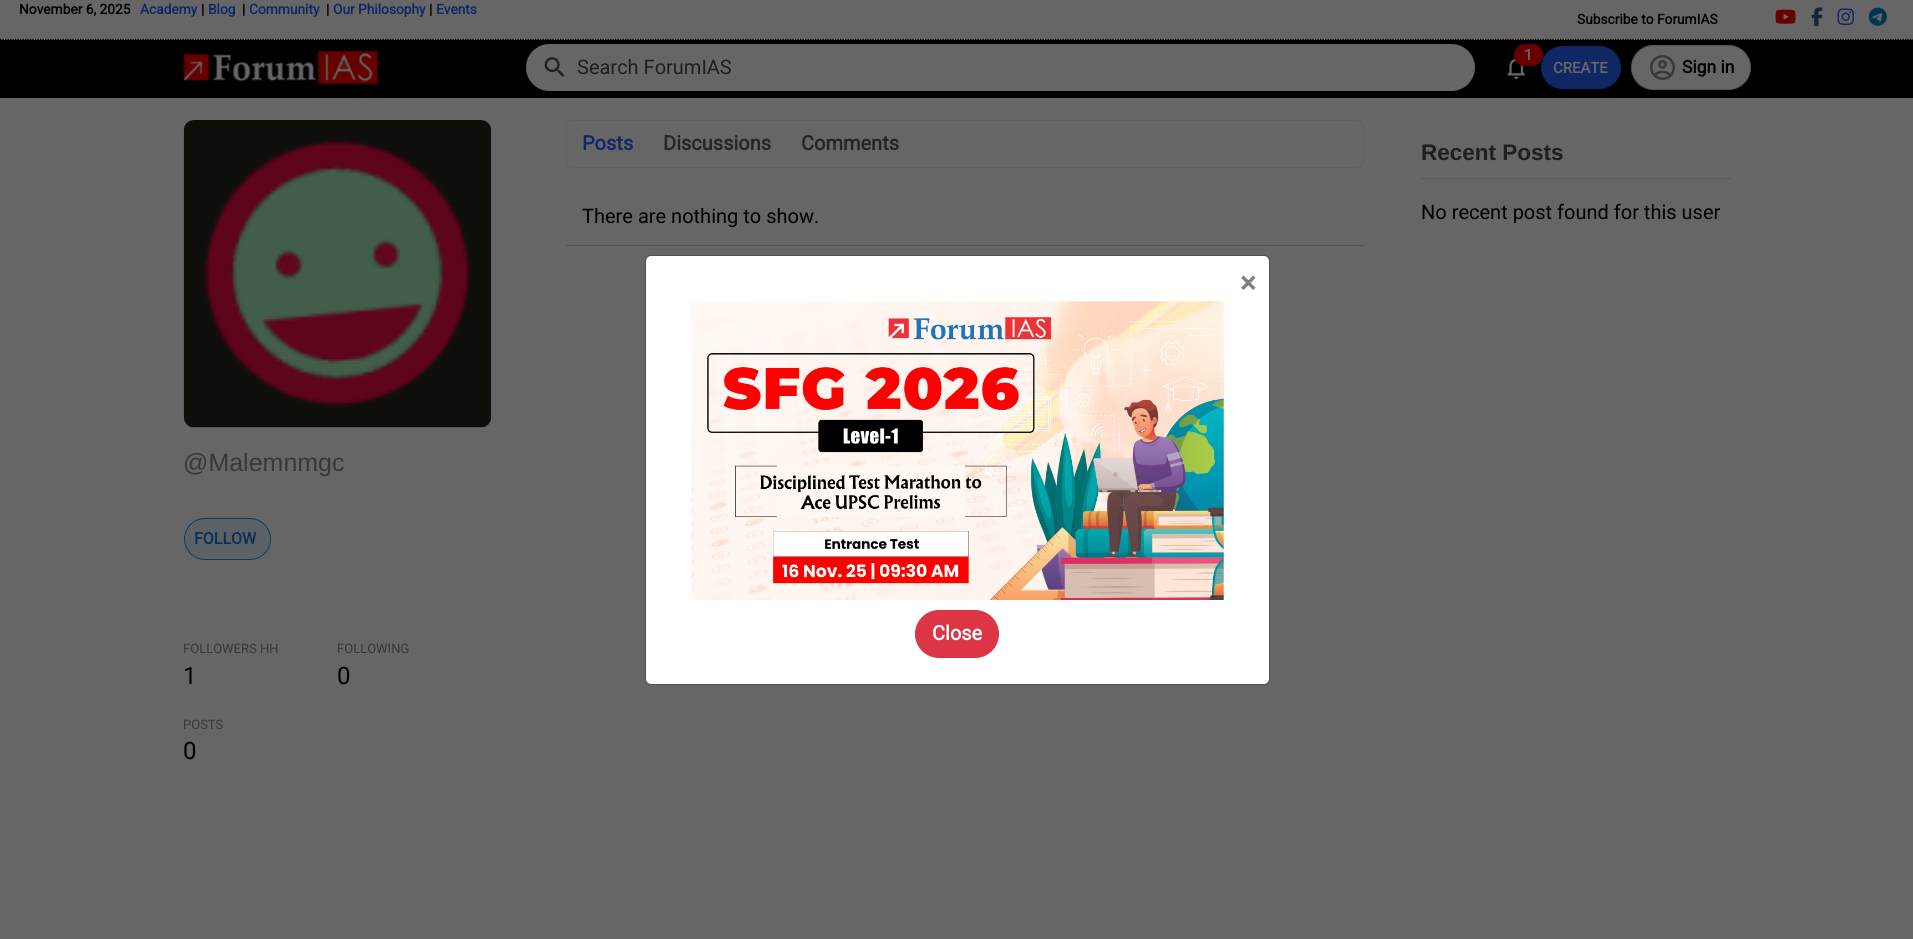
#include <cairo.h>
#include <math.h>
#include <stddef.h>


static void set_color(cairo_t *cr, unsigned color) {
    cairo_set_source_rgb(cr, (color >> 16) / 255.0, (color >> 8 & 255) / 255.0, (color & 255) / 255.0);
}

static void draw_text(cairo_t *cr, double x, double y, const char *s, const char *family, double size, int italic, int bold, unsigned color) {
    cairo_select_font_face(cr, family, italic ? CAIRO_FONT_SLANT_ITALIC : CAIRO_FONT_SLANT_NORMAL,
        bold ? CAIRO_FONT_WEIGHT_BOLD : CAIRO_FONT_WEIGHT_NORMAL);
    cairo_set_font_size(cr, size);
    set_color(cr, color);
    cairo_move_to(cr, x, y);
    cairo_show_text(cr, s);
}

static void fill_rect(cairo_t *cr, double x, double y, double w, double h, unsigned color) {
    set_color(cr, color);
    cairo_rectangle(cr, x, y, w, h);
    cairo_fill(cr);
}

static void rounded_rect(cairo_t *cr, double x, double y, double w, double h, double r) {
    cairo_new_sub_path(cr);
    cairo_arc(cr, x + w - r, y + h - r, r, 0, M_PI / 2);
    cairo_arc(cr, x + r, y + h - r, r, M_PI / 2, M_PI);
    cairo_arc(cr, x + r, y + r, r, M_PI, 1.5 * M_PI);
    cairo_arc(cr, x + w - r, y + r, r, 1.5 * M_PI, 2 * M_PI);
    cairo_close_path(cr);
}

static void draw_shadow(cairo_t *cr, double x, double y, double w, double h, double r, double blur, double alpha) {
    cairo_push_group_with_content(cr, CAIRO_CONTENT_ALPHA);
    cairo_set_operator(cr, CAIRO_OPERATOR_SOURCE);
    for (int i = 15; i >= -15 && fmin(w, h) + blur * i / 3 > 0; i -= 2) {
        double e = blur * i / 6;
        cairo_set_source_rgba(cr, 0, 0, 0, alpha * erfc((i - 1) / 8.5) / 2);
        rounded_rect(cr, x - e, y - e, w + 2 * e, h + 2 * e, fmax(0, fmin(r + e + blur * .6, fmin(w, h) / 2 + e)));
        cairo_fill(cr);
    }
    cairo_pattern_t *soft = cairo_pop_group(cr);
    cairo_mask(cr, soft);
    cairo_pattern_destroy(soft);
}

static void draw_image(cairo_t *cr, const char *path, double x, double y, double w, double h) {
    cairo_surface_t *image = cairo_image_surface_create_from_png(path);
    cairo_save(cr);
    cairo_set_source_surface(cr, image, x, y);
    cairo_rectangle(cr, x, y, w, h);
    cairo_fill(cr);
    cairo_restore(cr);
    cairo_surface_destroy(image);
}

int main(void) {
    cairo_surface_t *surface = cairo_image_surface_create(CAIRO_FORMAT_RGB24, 1913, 939);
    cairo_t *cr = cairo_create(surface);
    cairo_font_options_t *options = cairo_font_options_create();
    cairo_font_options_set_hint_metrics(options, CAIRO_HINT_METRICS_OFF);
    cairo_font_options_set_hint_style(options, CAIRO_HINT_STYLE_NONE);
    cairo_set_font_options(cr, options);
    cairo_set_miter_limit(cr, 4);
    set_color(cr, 0x666666);
    cairo_paint(cr);
    fill_rect(cr, 0, 40, 1913, 58, 0x000000);
    cairo_new_path(cr);
    cairo_move_to(cr, 0, 39.5);
    cairo_line_to(cr, 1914, 39.5);
    cairo_set_line_width(cr, 1.2);
    cairo_set_dash(cr, (double[]){1.25, 1.25}, 2, 0);
    cairo_stroke(cr);
    draw_text(cr, 19, 14, "November 6, 2025", "Roboto", 13.75, 0, 1, 0x000000);
    draw_text(cr, 140, 14, "Academy", "Roboto", 13.75, 0, 1, 0x102766);
    draw_text(cr, 201, 14, "|", "Roboto", 13.75, 0, 1, 0x000000);
    draw_text(cr, 208, 14, "Blog", "Roboto", 13.75, 0, 1, 0x102766);
    draw_text(cr, 242, 14, "|", "Roboto", 13.75, 0, 1, 0x000000);
    draw_text(cr, 249, 14, "Community", "Roboto", 13.75, 0, 1, 0x102766);
    draw_text(cr, 326, 14, "|", "Roboto", 13.75, 0, 1, 0x000000);
    draw_text(cr, 333, 14, "Our Philosophy", "Roboto", 13.75, 0, 1, 0x102766);
    draw_text(cr, 429, 14, "|", "Roboto", 13.75, 0, 1, 0x000000);
    draw_text(cr, 436, 14, "Events", "Roboto", 13.75, 0, 1, 0x102766);
    draw_text(cr, 1577, 24, "Subscribe to ForumIAS", "Roboto", 13.75, 0, 1, 0x000000);
    draw_image(cr, "assets/img1.png", 1775, 9, 21, 15);
    draw_image(cr, "assets/img2.png", 1811, 7, 12, 20);
    draw_image(cr, "assets/img3.png", 1837, 8, 17, 17);
    draw_image(cr, "assets/img4.png", 1868, 7, 19, 19);
    draw_image(cr, "assets/img5.png", 183, 51, 195, 34);
    set_color(cr, 0x666666);
    rounded_rect(cr, 526, 44, 949, 47, 23.5);
    cairo_fill(cr);
    draw_image(cr, "assets/img6.png", 544, 57, 21, 20);
    draw_text(cr, 577, 74, "Search ForumIAS", "Roboto", 20, 0, 0, 0x1F1F1F);
    draw_image(cr, "assets/img7.png", 1507, 57, 18, 22);
    set_color(cr, 0x102766);
    rounded_rect(cr, 1541, 46, 80, 43, 21.5);
    cairo_fill(cr);
    set_color(cr, 0x000000);
    draw_shadow(cr, 1514, 45, 29, 23, 11.5, 1, 0.2);
    set_color(cr, 0x660000);
    rounded_rect(cr, 1514, 44, 29, 22, 11);
    cairo_fill(cr);
    draw_text(cr, 1524, 60, "1", "Roboto", 15, 0, 1, 0x666666);
    draw_text(cr, 1553, 73, "CREATE", "Roboto", 15, 0, 1, 0x666666);
    rounded_rect(cr, 1631.5, 45.5, 119, 44, 22);
    cairo_fill_preserve(cr);
    set_color(cr, 0x535658);
    cairo_set_line_width(cr, 1);
    cairo_set_dash(cr, NULL, 0, 0);
    cairo_stroke(cr);
    draw_image(cr, "assets/img8.png", 1650, 55, 25, 25);
    draw_text(cr, 1682, 73, "Sign in", "Roboto", 17.5, 0, 1, 0x000000);
    rounded_rect(cr, 566.5, 120.5, 797, 47, 5.5);
    set_color(cr, 0x5F6061);
    cairo_stroke(cr);
    draw_text(cr, 582, 150, "Posts", "Roboto", 20, 0, 1, 0x102766);
    draw_text(cr, 663, 150, "Discussions", "Roboto", 20, 0, 1, 0x252525);
    draw_text(cr, 801, 150, "Comments", "Roboto", 20, 0, 1, 0x252525);
    fill_rect(cr, 566, 245, 798, 1, 0x535658);
    draw_text(cr, 582, 223, "There are nothing to show.", "Roboto", 20, 0, 0, 0x000000);
    fill_rect(cr, 1421, 178, 310, 1, 0x5A5A5A);
    draw_text(cr, 1421, 160, "Recent Posts", "Liberation Sans", 22.5, 0, 1, 0x1F1F1F);
    draw_text(cr, 1421, 219, "No recent post found for this user", "Roboto", 20, 0, 0, 0x000000);
    draw_image(cr, "assets/img9.png", 183, 120, 309, 308);
    draw_text(cr, 183, 471, "@Malemnmgc", "Liberation Sans", 25, 0, 0, 0x383838);
    set_color(cr, 0x5B6165);
    rounded_rect(cr, 184.5, 518.5, 86, 41, 20.5);
    cairo_fill_preserve(cr);
    set_color(cr, 0x0D3C61);
    cairo_stroke(cr);
    draw_text(cr, 194, 544, "FOLLOW", "Roboto", 16, 0, 1, 0x0A2F54);
    draw_text(cr, 183, 653, "FOLLOWERS HH", "Roboto", 13, 0, 0, 0x383838);
    draw_text(cr, 183, 684, "1", "Roboto", 24, 0, 0, 0x000000);
    draw_text(cr, 337, 653, "FOLLOWING", "Roboto", 13, 0, 0, 0x383838);
    draw_text(cr, 337, 684, "0", "Roboto", 24, 0, 0, 0x000000);
    draw_text(cr, 183, 729, "POSTS", "Roboto", 13, 0, 0, 0x383838);
    draw_text(cr, 183, 759, "0", "Roboto", 24, 0, 0, 0x000000);
    set_color(cr, 0xFFFFFF);
    rounded_rect(cr, 646, 256, 623, 428, 5);
    cairo_fill(cr);
    rounded_rect(cr, 645.5, 255.5, 624, 429, 5.5);
    cairo_set_source_rgba(cr, 0, 0, 0, 0.2);
    cairo_stroke(cr);
    draw_text(cr, 1240, 293, "×", "Roboto", 30, 0, 1, 0x808080);
    draw_image(cr, "assets/img10.png", 691, 301, 533, 299);
    set_color(cr, 0xDC3545);
    rounded_rect(cr, 915.5, 610.5, 83, 47, 23.5);
    cairo_fill_preserve(cr);
    cairo_stroke(cr);
    draw_text(cr, 932, 640, "Close", "Roboto", 20, 0, 1, 0xFFFFFF);
    cairo_surface_write_to_png(surface, "output.png");
    cairo_font_options_destroy(options);
    cairo_destroy(cr);
    cairo_surface_destroy(surface);
    return 0;
}
